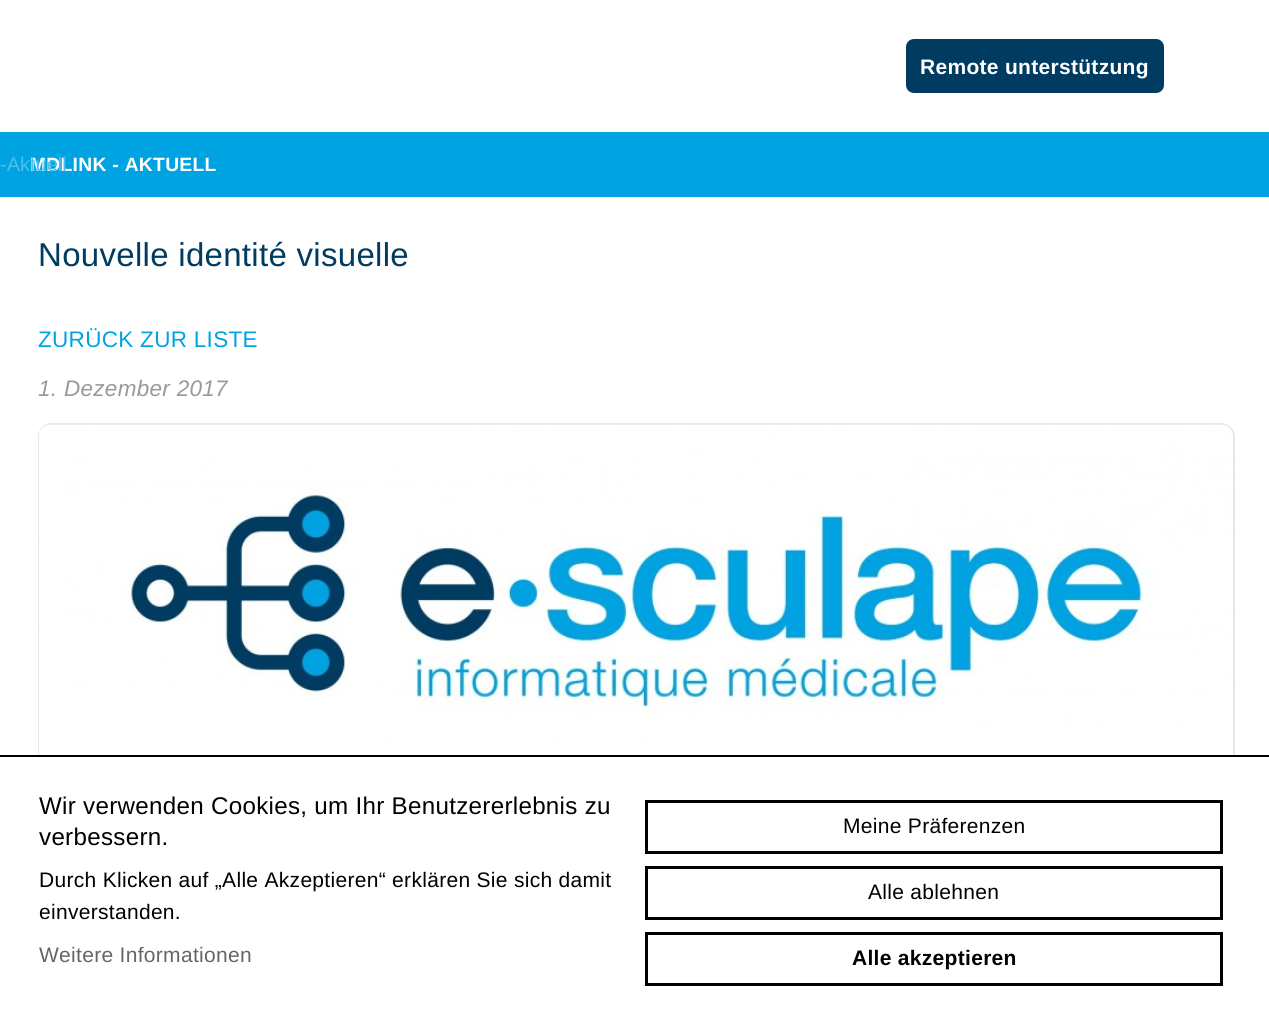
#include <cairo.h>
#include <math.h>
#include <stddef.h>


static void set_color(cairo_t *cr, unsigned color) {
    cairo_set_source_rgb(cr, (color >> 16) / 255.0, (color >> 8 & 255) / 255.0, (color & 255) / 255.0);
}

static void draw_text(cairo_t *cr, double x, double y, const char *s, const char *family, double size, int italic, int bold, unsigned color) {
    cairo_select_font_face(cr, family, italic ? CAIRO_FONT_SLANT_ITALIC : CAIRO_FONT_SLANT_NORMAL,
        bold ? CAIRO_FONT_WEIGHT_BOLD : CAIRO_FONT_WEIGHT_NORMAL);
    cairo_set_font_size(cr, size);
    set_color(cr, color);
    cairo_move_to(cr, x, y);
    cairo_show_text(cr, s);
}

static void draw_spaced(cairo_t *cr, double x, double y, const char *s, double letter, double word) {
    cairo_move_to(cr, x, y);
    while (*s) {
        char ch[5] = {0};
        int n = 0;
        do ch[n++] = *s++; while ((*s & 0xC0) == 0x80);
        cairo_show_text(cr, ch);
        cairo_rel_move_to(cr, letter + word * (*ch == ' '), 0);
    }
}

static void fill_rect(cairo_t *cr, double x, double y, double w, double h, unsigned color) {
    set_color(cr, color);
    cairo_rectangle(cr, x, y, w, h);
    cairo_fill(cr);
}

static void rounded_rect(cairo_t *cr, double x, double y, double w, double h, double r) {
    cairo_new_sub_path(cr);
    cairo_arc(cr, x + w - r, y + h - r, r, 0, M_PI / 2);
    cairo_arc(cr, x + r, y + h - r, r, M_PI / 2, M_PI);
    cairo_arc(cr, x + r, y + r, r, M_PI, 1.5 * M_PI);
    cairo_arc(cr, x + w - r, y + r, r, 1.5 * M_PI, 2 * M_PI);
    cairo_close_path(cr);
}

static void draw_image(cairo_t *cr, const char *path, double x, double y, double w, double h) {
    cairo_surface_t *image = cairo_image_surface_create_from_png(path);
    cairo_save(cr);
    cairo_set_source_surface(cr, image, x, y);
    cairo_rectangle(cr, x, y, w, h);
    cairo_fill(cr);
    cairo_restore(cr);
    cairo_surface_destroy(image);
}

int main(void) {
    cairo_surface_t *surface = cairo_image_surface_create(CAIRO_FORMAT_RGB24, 1269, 1017);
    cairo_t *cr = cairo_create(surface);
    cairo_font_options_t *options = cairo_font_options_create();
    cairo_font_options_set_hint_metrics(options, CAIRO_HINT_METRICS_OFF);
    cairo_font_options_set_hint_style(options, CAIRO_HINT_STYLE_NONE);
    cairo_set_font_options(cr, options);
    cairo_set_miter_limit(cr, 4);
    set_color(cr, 0xFFFFFF);
    cairo_paint(cr);
    set_color(cr, 0x003B61);
    rounded_rect(cr, 906, 39, 258, 54, 8);
    cairo_fill(cr);
    cairo_select_font_face(cr, "Liberation Sans", CAIRO_FONT_SLANT_NORMAL, CAIRO_FONT_WEIGHT_BOLD);
    cairo_set_font_size(cr, 21);
    set_color(cr, 0xFFFFFF);
    draw_spaced(cr, 920, 74, "Remote unterstützung", 0.3, 0);
    fill_rect(cr, 0, 132, 1269, 65, 0x00A3E1);
    cairo_set_font_size(cr, 19.25);
    set_color(cr, 0xFFFFFF);
    draw_spaced(cr, 30, 171, "MDLINK - AKTUELL", 0.3, 0);
    draw_text(cr, 0, 171, "-Aktuell", "Liberation Sans", 20, 0, 0, 0x4CBEEA);
    cairo_set_font_size(cr, 33);
    set_color(cr, 0x003B61);
    draw_spaced(cr, 38, 266, "Nouvelle identité visuelle", 0.3, 0);
    cairo_set_font_size(cr, 22.5);
    set_color(cr, 0x00A3E1);
    draw_spaced(cr, 38, 347, "ZURÜCK ZUR LISTE", 0.3, 0);
    cairo_select_font_face(cr, "Liberation Sans", CAIRO_FONT_SLANT_ITALIC, CAIRO_FONT_WEIGHT_NORMAL);
    set_color(cr, 0x999999);
    draw_spaced(cr, 38, 396, "1. Dezember 2017", 0.3, 0);
    rounded_rect(cr, 39, 424, 1195, 366, 13);
    set_color(cr, 0xE5E7E9);
    cairo_stroke(cr);
    draw_image(cr, "assets/img1.png", 39, 424, 1194, 331);
    fill_rect(cr, 38, 757, 1197, 34, 0xFFFFFF);
    fill_rect(cr, 0, 755, 1269, 2, 0x000000);
    cairo_select_font_face(cr, "Liberation Sans", CAIRO_FONT_SLANT_NORMAL, CAIRO_FONT_WEIGHT_NORMAL);
    cairo_set_font_size(cr, 24.15);
    draw_spaced(cr, 39, 814, "Wir verwenden Cookies, um Ihr Benutzererlebnis zu", 0.3, 0);
    draw_spaced(cr, 39, 845, "verbessern.", 0.3, 0);
    cairo_set_font_size(cr, 21);
    draw_spaced(cr, 39, 887, "Durch Klicken auf „Alle Akzeptieren“ erklären Sie sich damit", 0.3, 0);
    draw_spaced(cr, 39, 919, "einverstanden.", 0.3, 0);
    set_color(cr, 0x666666);
    draw_spaced(cr, 39, 962, "Weitere Informationen", 0.3, 0);
    cairo_rectangle(cr, 646.5, 801.5, 575, 51);
    set_color(cr, 0x000000);
    cairo_set_line_width(cr, 3);
    cairo_stroke(cr);
    draw_spaced(cr, 843, 833, "Meine Präferenzen", 0.3, 0);
    cairo_rectangle(cr, 646.5, 867.5, 575, 51);
    cairo_stroke(cr);
    draw_spaced(cr, 868, 899, "Alle ablehnen", 0.3, 0);
    cairo_rectangle(cr, 646.5, 933.5, 575, 51);
    cairo_stroke(cr);
    cairo_select_font_face(cr, "Liberation Sans", CAIRO_FONT_SLANT_NORMAL, CAIRO_FONT_WEIGHT_BOLD);
    draw_spaced(cr, 852, 965, "Alle akzeptieren", 0.3, 0);
    cairo_surface_write_to_png(surface, "output.png");
    cairo_font_options_destroy(options);
    cairo_destroy(cr);
    cairo_surface_destroy(surface);
    return 0;
}
